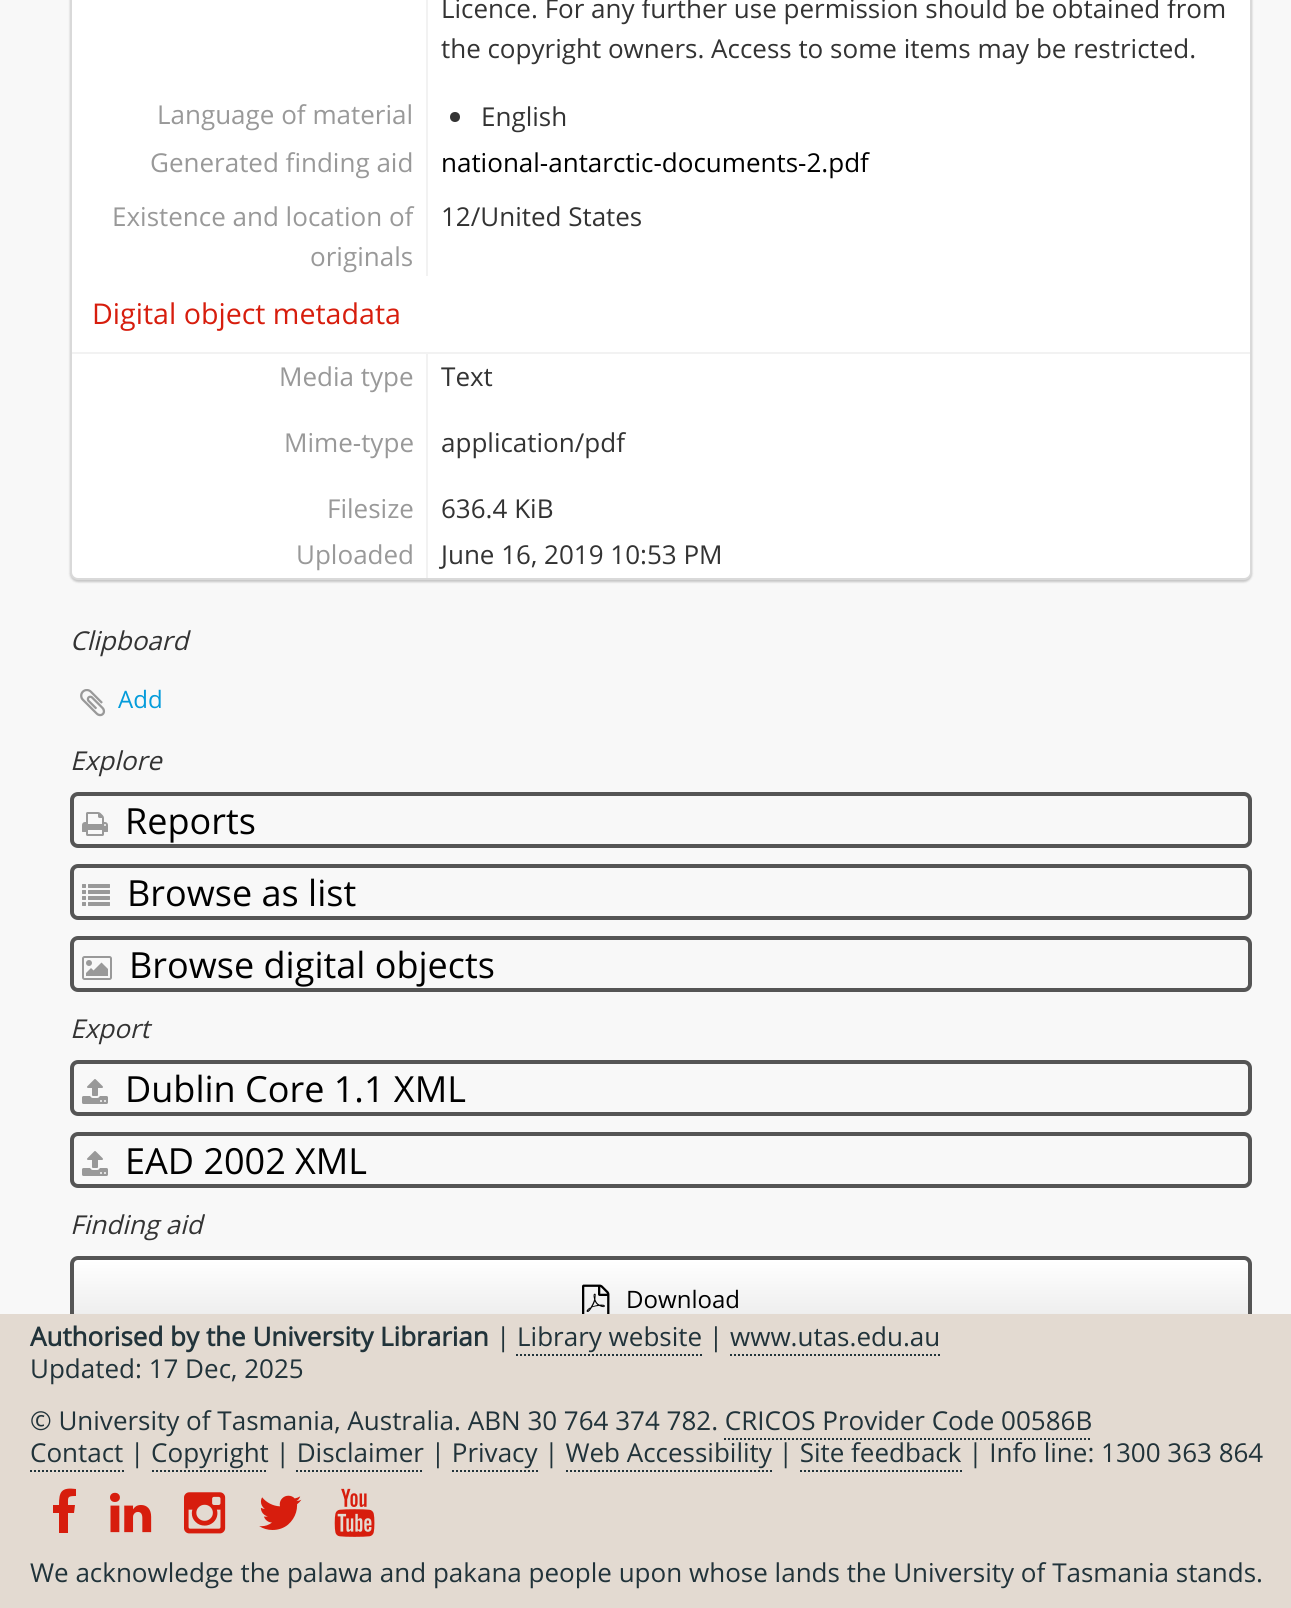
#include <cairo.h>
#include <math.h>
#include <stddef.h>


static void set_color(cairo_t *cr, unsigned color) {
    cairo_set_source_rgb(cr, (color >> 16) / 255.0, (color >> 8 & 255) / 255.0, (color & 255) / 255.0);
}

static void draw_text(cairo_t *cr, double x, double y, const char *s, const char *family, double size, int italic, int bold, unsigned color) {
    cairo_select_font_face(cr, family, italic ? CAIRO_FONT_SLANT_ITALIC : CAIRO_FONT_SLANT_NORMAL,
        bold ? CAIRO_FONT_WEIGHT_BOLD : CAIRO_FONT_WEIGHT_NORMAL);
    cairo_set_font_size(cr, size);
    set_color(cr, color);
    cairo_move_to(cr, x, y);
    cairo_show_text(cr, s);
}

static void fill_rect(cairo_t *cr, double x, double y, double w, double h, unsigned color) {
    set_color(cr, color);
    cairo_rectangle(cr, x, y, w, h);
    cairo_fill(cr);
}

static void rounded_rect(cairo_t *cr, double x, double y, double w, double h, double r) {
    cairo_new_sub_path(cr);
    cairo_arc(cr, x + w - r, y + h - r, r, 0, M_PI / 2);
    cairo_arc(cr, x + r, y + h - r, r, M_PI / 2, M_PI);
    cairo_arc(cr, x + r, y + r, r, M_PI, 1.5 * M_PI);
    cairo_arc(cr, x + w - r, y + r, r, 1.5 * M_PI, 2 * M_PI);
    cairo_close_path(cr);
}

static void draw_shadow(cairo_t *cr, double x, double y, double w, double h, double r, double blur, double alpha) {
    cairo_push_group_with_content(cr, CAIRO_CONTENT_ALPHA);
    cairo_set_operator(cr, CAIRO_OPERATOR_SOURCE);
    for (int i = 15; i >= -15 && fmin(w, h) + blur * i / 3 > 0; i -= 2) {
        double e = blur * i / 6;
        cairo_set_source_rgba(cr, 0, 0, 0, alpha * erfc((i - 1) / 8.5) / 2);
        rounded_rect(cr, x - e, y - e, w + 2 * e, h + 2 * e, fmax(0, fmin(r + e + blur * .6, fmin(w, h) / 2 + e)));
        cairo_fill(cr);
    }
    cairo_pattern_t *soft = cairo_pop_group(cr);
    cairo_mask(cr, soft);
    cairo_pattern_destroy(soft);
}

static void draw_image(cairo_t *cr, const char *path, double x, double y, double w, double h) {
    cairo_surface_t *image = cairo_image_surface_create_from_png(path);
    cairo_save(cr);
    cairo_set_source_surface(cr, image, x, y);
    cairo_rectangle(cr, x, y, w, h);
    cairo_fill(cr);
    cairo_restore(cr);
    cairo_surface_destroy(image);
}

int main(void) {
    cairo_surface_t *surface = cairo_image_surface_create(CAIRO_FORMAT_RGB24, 1291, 1608);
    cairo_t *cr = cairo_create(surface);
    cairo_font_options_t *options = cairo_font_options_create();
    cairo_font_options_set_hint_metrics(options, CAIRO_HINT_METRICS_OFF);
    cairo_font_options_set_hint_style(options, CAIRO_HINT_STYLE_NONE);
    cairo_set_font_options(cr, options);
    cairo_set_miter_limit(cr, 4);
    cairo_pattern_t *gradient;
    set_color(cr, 0xF8F8F8);
    cairo_paint(cr);
    set_color(cr, 0x000000);
    draw_shadow(cr, 70, -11, 1182, 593, 8, 1, 0.2);
    set_color(cr, 0xFFFFFF);
    rounded_rect(cr, 71, -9, 1180, 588, 7);
    cairo_fill_preserve(cr);
    set_color(cr, 0xD9D9D9);
    cairo_stroke(cr);
    fill_rect(cr, 426, 0, 2, 276, 0xF2F2F2);
    draw_text(cr, 441, 18, "Licence. For any further use permission should be obtained from", "Open Sans", 26, 0, 0, 0x333333);
    draw_text(cr, 441, 58, "the copyright owners. Access to some items may be restricted.", "Open Sans", 26, 0, 0, 0x333333);
    draw_text(cr, 157, 124, "Language of material", "Open Sans", 26, 0, 0, 0x999999);
    set_color(cr, 0x333333);
    cairo_new_path(cr);
    cairo_arc(cr, 455, 117, 5, 0, 2 * M_PI);
    cairo_fill(cr);
    draw_text(cr, 481, 126, "English", "Open Sans", 26, 0, 0, 0x333333);
    draw_text(cr, 150, 172, "Generated finding aid", "Open Sans", 26, 0, 0, 0x999999);
    draw_text(cr, 441, 172, "national-antarctic-documents-2.pdf", "Open Sans", 26, 0, 0, 0x000000);
    draw_text(cr, 112, 226, "Existence and location of", "Open Sans", 26, 0, 0, 0x999999);
    draw_text(cr, 310, 266, "originals", "Open Sans", 26, 0, 0, 0x999999);
    draw_text(cr, 441, 226, "12/United States", "Open Sans", 26, 0, 0, 0x333333);
    fill_rect(cr, 72, 352, 1178, 2, 0xF2F2F2);
    draw_text(cr, 92, 324, "Digital object metadata", "Open Sans", 28.6, 0, 0, 0xD71D0D);
    fill_rect(cr, 426, 354, 2, 224, 0xF2F2F2);
    draw_text(cr, 279, 386, "Media type", "Open Sans", 26, 0, 0, 0x999999);
    draw_text(cr, 441, 386, "Text", "Open Sans", 26, 0, 0, 0x333333);
    draw_text(cr, 284, 452, "Mime-type", "Open Sans", 26, 0, 0, 0x999999);
    draw_text(cr, 441, 452, "application/pdf", "Open Sans", 26, 0, 0, 0x333333);
    draw_text(cr, 327, 518, "Filesize", "Open Sans", 26, 0, 0, 0x999999);
    draw_text(cr, 441, 518, "636.4 KiB", "Open Sans", 26, 0, 0, 0x333333);
    draw_text(cr, 296, 564, "Uploaded", "Open Sans", 26, 0, 0, 0x999999);
    draw_text(cr, 441, 564, "June 16, 2019 10:53 PM", "Open Sans", 26, 0, 0, 0x333333);
    draw_text(cr, 70, 650, "Clipboard", "Open Sans", 26, 1, 0, 0x333333);
    draw_image(cr, "assets/img1.png", 80, 689, 26, 28);
    draw_text(cr, 118, 708, "Add", "Open Sans", 24, 0, 0, 0x049CDB);
    draw_text(cr, 70, 770, "Explore", "Open Sans", 26, 1, 0, 0x333333);
    rounded_rect(cr, 72, 794, 1178, 52, 6);
    set_color(cr, 0x555555);
    cairo_set_line_width(cr, 4);
    cairo_stroke(cr);
    draw_image(cr, "assets/img2.png", 82, 812, 26, 24);
    draw_text(cr, 125, 834, "Reports", "Open Sans", 36, 0, 0, 0x000000);
    rounded_rect(cr, 72, 866, 1178, 52, 6);
    set_color(cr, 0x555555);
    cairo_stroke(cr);
    draw_image(cr, "assets/img3.png", 82, 884, 28, 22);
    draw_text(cr, 127, 906, "Browse as list", "Open Sans", 36, 0, 0, 0x000000);
    rounded_rect(cr, 72, 938, 1178, 52, 6);
    set_color(cr, 0x555555);
    cairo_stroke(cr);
    draw_image(cr, "assets/img4.png", 82, 956, 30, 24);
    draw_text(cr, 129, 978, "Browse digital objects", "Open Sans", 36, 0, 0, 0x000000);
    draw_text(cr, 70, 1038, "Export", "Open Sans", 26, 1, 0, 0x333333);
    rounded_rect(cr, 72, 1062, 1178, 52, 6);
    set_color(cr, 0x555555);
    cairo_stroke(cr);
    draw_image(cr, "assets/img5.png", 82, 1079, 26, 25);
    draw_text(cr, 125, 1102, "Dublin Core 1.1 XML", "Open Sans", 36, 0, 0, 0x000000);
    rounded_rect(cr, 72, 1134, 1178, 52, 6);
    set_color(cr, 0x555555);
    cairo_stroke(cr);
    draw_image(cr, "assets/img5.png", 82, 1151, 26, 25);
    draw_text(cr, 125, 1174, "EAD 2002 XML", "Open Sans", 36, 0, 0, 0x000000);
    draw_text(cr, 70, 1234, "Finding aid", "Open Sans", 26, 1, 0, 0x333333);
    cairo_save(cr);
    rounded_rect(cr, 70, 1256, 1182, 88, 8);
    cairo_clip(cr);
    gradient = cairo_pattern_create_linear(661, 1260, 661, 1340);
    cairo_pattern_add_color_stop_rgba(gradient, 0, 1, 1, 1, 1);
    cairo_pattern_add_color_stop_rgba(gradient, 1, 0.902, 0.902, 0.902, 1);
    cairo_set_source(cr, gradient);
    cairo_pattern_destroy(gradient);
    cairo_rectangle(cr, 70, 1260, 1182, 54);
    cairo_fill(cr);
    cairo_restore(cr);
    rounded_rect(cr, 72, 1258, 1178, 84, 6);
    set_color(cr, 0x555555);
    cairo_stroke(cr);
    draw_image(cr, "assets/img6.png", 582, 1284, 28, 30);
    draw_text(cr, 626, 1308, "Download", "Open Sans", 24, 0, 0, 0x000000);
    fill_rect(cr, 0, 1314, 1291, 294, 0xE3DAD1);
    draw_text(cr, 30, 1346, "Authorised by the University Librarian", "Open Sans", 26, 0, 1, 0x21333A);
    draw_text(cr, 496, 1346, "| Library website | www.utas.edu.au", "Open Sans", 26, 0, 0, 0x21333A);
    cairo_new_path(cr);
    cairo_move_to(cr, 516, 1355);
    cairo_line_to(cr, 702, 1355);
    cairo_set_line_width(cr, 2);
    cairo_set_dash(cr, (double[]){2, 2}, 2, 0);
    cairo_stroke(cr);
    cairo_new_path(cr);
    cairo_move_to(cr, 730, 1355);
    cairo_line_to(cr, 940, 1355);
    cairo_stroke(cr);
    draw_text(cr, 30, 1378, "Updated: 17 Dec, 2025", "Open Sans", 26, 0, 0, 0x21333A);
    draw_text(cr, 30, 1430, "© University of Tasmania, Australia. ABN 30 764 374 782. CRICOS Provider Code 00586B", "Open Sans", 26, 0, 0, 0x21333A);
    cairo_new_path(cr);
    cairo_move_to(cr, 724, 1439);
    cairo_line_to(cr, 1092, 1439);
    cairo_stroke(cr);
    draw_text(cr, 30, 1462, "Contact | Copyright | Disclaimer | Privacy | Web Accessibility | Site feedback | Info line: 1300 363 864", "Open Sans", 26, 0, 0, 0x21333A);
    cairo_new_path(cr);
    cairo_move_to(cr, 30, 1471);
    cairo_line_to(cr, 124, 1471);
    cairo_stroke(cr);
    cairo_new_path(cr);
    cairo_move_to(cr, 152, 1471);
    cairo_line_to(cr, 268, 1471);
    cairo_stroke(cr);
    cairo_new_path(cr);
    cairo_move_to(cr, 296, 1471);
    cairo_line_to(cr, 424, 1471);
    cairo_stroke(cr);
    cairo_new_path(cr);
    cairo_move_to(cr, 452, 1471);
    cairo_line_to(cr, 538, 1471);
    cairo_stroke(cr);
    cairo_new_path(cr);
    cairo_move_to(cr, 566, 1471);
    cairo_line_to(cr, 772, 1471);
    cairo_stroke(cr);
    cairo_new_path(cr);
    cairo_move_to(cr, 800, 1471);
    cairo_line_to(cr, 962, 1471);
    cairo_stroke(cr);
    set_color(cr, 0xD71D0D);
    cairo_new_path(cr);
    cairo_move_to(cr, 76, 1489);
    cairo_line_to(cr, 76, 1496);
    cairo_curve_to(cr, 67, 1496, 68, 1497, 68, 1505);
    cairo_line_to(cr, 75, 1505);
    cairo_line_to(cr, 74, 1513);
    cairo_line_to(cr, 68, 1513);
    cairo_line_to(cr, 68, 1533);
    cairo_line_to(cr, 59, 1533);
    cairo_line_to(cr, 59, 1513);
    cairo_line_to(cr, 53, 1513);
    cairo_line_to(cr, 53, 1505);
    cairo_line_to(cr, 59, 1505);
    cairo_curve_to(cr, 59, 1492, 61, 1487, 76, 1489);
    cairo_close_path(cr);
    cairo_fill(cr);
    draw_image(cr, "assets/img7.png", 110, 1492, 42, 41);
    draw_image(cr, "assets/img8.png", 184, 1492, 42, 42);
    draw_image(cr, "assets/img9.png", 259, 1495, 43, 35);
    draw_image(cr, "assets/img10.png", 334, 1488, 41, 49);
    draw_text(cr, 30, 1582, "We acknowledge the palawa and pakana people upon whose lands the University of Tasmania stands.", "Open Sans", 26, 0, 0, 0x21333A);
    cairo_surface_write_to_png(surface, "output.png");
    cairo_font_options_destroy(options);
    cairo_destroy(cr);
    cairo_surface_destroy(surface);
    return 0;
}
